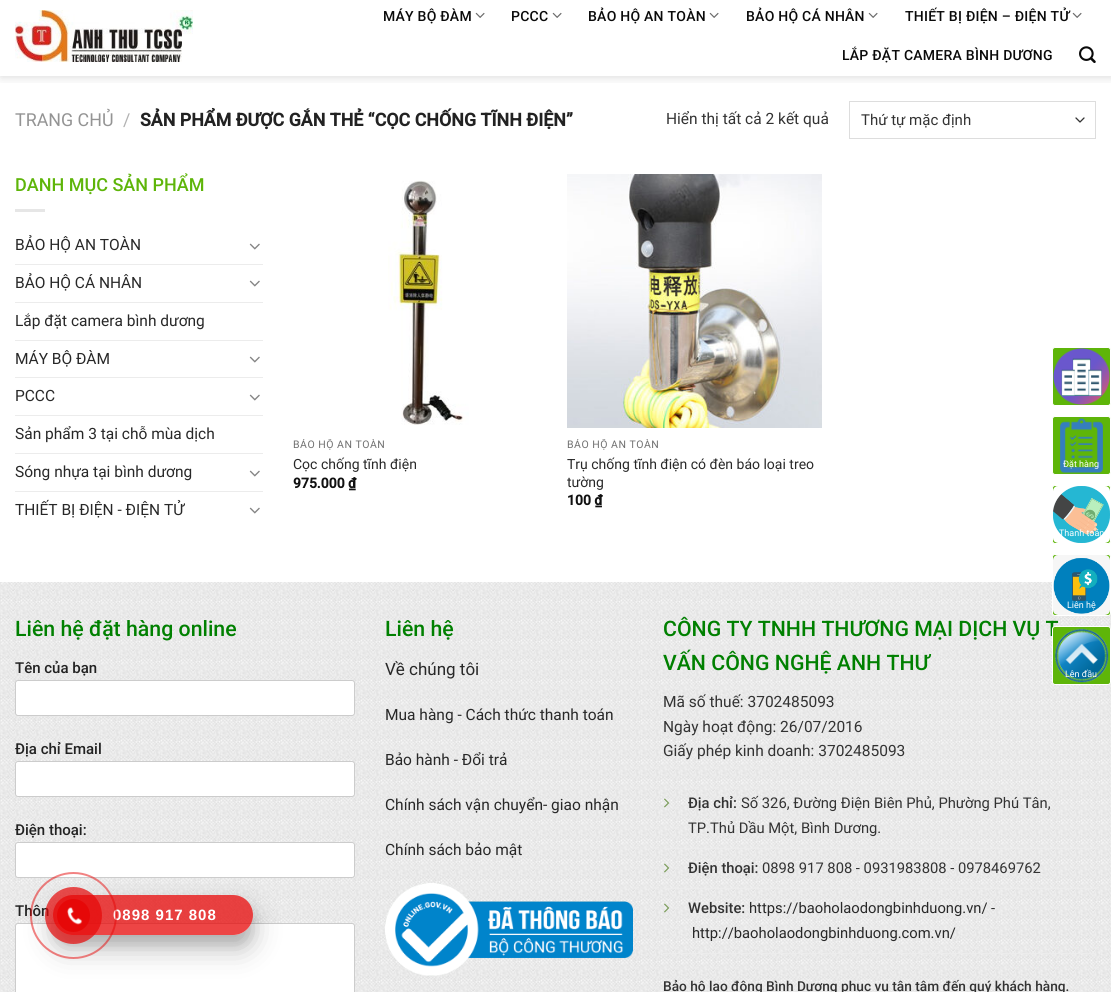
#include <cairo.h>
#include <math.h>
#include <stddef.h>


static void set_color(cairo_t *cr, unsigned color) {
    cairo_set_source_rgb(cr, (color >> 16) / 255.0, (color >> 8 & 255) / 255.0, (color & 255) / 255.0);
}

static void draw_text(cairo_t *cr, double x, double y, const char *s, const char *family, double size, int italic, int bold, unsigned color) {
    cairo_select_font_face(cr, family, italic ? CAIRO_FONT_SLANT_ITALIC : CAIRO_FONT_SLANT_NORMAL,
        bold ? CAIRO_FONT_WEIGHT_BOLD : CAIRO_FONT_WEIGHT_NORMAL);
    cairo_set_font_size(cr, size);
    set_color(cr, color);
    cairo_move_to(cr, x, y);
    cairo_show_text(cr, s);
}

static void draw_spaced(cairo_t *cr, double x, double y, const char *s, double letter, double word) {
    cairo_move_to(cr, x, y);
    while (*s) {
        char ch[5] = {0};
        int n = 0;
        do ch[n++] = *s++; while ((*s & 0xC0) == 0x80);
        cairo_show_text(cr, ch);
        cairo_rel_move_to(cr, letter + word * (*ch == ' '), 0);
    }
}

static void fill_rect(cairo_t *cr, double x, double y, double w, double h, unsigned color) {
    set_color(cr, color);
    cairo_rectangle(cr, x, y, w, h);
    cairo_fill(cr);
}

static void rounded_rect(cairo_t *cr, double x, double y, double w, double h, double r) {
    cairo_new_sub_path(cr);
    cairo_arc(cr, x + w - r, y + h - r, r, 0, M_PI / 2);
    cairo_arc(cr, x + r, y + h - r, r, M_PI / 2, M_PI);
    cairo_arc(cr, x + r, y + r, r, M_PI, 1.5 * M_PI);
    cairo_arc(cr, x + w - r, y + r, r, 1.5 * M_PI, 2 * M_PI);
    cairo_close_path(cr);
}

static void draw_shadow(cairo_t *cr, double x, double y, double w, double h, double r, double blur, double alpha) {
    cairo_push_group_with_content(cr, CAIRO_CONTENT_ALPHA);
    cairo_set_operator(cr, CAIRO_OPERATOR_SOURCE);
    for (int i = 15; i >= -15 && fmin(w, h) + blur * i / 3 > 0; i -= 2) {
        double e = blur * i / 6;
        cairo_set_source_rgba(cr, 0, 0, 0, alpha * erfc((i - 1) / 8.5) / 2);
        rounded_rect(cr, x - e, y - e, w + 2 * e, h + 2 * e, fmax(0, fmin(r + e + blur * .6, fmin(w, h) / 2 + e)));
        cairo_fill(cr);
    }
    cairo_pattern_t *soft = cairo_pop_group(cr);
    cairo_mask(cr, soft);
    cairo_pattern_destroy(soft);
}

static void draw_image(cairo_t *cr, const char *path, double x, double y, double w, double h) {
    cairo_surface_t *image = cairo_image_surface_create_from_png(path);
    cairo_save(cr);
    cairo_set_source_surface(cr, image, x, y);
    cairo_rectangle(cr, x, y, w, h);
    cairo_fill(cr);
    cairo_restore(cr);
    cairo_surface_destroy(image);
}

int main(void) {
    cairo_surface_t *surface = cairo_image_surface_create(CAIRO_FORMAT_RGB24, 1111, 992);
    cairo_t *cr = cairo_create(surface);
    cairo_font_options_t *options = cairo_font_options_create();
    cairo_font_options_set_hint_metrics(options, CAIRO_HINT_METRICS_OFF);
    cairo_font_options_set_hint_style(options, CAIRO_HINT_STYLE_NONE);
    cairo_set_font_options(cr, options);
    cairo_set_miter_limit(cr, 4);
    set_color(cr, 0xFFFFFF);
    cairo_paint(cr);
    cairo_save(cr);
    cairo_rectangle(cr, 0, 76, 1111, 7);
    cairo_clip(cr);
    set_color(cr, 0x000000);
    draw_shadow(cr, 1, -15, 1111, 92, 0, 5, 0.15);
    cairo_restore(cr);
    draw_image(cr, "assets/img1.png", 15, 10, 178, 52);
    cairo_select_font_face(cr, "Roboto Medium", CAIRO_FONT_SLANT_NORMAL, CAIRO_FONT_WEIGHT_NORMAL);
    cairo_set_font_size(cr, 14);
    set_color(cr, 0x0A0A0A);
    draw_spaced(cr, 383, 21, "MÁY BỘ ĐÀM", 0.25, 0);
    draw_image(cr, "assets/img2.png", 475, 12, 10, 6);
    draw_spaced(cr, 511, 21, "PCCC", 0.25, 0);
    draw_image(cr, "assets/img2.png", 552, 12, 10, 6);
    draw_spaced(cr, 588, 21, "BẢO HỘ AN TOÀN", 0.25, 0);
    draw_image(cr, "assets/img2.png", 709, 12, 10, 6);
    draw_spaced(cr, 746, 21, "BẢO HỘ CÁ NHÂN", 0.25, 0);
    draw_image(cr, "assets/img2.png", 868, 12, 10, 6);
    draw_spaced(cr, 905, 21, "THIẾT BỊ ĐIỆN – ĐIỆN TỬ", 0.25, 0);
    draw_image(cr, "assets/img2.png", 1072, 12, 10, 6);
    draw_spaced(cr, 842, 60, "LẮP ĐẶT CAMERA BÌNH DƯƠNG", 0.25, 0);
    draw_image(cr, "assets/img3.png", 1079, 46, 17, 17);
    draw_text(cr, 15, 126, "TRANG CHỦ", "Roboto", 17.85, 0, 0, 0x949494);
    draw_text(cr, 123, 126, "/", "Roboto", 17.85, 0, 0, 0xB2B2B2);
    draw_text(cr, 140, 126, "SẢN PHẨM ĐƯỢC GẮN THẺ “CỌC CHỐNG TĨNH ĐIỆN”", "Roboto", 17.85, 0, 1, 0x222222);
    draw_text(cr, 666, 124, "Hiển thị tất cả 2 kết quả", "Roboto", 15.5, 0, 0, 0x333333);
    cairo_new_path(cr);
    cairo_move_to(cr, 1076, 118);
    cairo_line_to(cr, 1080, 122);
    cairo_line_to(cr, 1084, 118);
    cairo_set_line_width(cr, 1.3);
    cairo_set_line_cap(cr, CAIRO_LINE_CAP_ROUND);
    cairo_set_line_join(cr, CAIRO_LINE_JOIN_ROUND);
    cairo_stroke(cr);
    cairo_rectangle(cr, 849.5, 101.5, 246, 37);
    set_color(cr, 0xDDDDDD);
    cairo_set_line_width(cr, 1);
    cairo_set_line_cap(cr, CAIRO_LINE_CAP_BUTT);
    cairo_set_line_join(cr, CAIRO_LINE_JOIN_MITER);
    cairo_stroke(cr);
    draw_text(cr, 861, 125, "Thứ tự mặc định", "Roboto", 15, 0, 0, 0x333333);
    draw_text(cr, 15, 191, "DANH MỤC SẢN PHẨM", "Roboto Medium", 18, 0, 0, 0x5EB509);
    fill_rect(cr, 15, 209, 30, 3, 0xE6E6E6);
    draw_text(cr, 15, 250, "BẢO HỘ AN TOÀN", "Roboto", 15.5, 0, 0, 0x282828);
    draw_image(cr, "assets/img4.png", 249, 243, 11, 7);
    fill_rect(cr, 15, 264, 248, 1, 0xECECEC);
    draw_text(cr, 15, 288, "BẢO HỘ CÁ NHÂN", "Roboto", 15.5, 0, 0, 0x282828);
    draw_image(cr, "assets/img4.png", 249, 280, 11, 7);
    fill_rect(cr, 15, 302, 248, 1, 0xECECEC);
    draw_text(cr, 15, 326, "Lắp đặt camera bình dương", "Roboto", 15.5, 0, 0, 0x282828);
    fill_rect(cr, 15, 340, 248, 1, 0xECECEC);
    draw_text(cr, 15, 364, "MÁY BỘ ĐÀM", "Roboto", 15.5, 0, 0, 0x282828);
    draw_image(cr, "assets/img4.png", 249, 356, 11, 7);
    fill_rect(cr, 15, 377, 248, 1, 0xECECEC);
    draw_text(cr, 15, 401, "PCCC", "Roboto", 15.5, 0, 0, 0x282828);
    draw_image(cr, "assets/img4.png", 249, 394, 11, 7);
    fill_rect(cr, 15, 415, 248, 1, 0xECECEC);
    draw_text(cr, 15, 439, "Sản phẩm 3 tại chỗ mùa dịch", "Roboto", 15.5, 0, 0, 0x282828);
    fill_rect(cr, 15, 453, 248, 1, 0xECECEC);
    draw_text(cr, 15, 477, "Sóng nhựa tại bình dương", "Roboto", 15.5, 0, 0, 0x282828);
    draw_image(cr, "assets/img4.png", 249, 470, 11, 7);
    fill_rect(cr, 15, 491, 248, 1, 0xECECEC);
    draw_text(cr, 15, 515, "THIẾT BỊ ĐIỆN - ĐIỆN TỬ", "Roboto", 15.5, 0, 0, 0x282828);
    draw_image(cr, "assets/img4.png", 249, 507, 11, 7);
    draw_image(cr, "assets/img5.png", 388, 180, 81, 245);
    cairo_save(cr);
    cairo_rectangle(cr, 293, 439, 254, 13);
    cairo_clip(cr);
    cairo_set_font_size(cr, 10.5);
    set_color(cr, 0x707070);
    draw_spaced(cr, 293, 448, "BẢO HỘ AN TOÀN", 0.5, 0);
    cairo_restore(cr);
    draw_text(cr, 293, 469, "Cọc chống tĩnh điện", "Roboto", 14, 0, 0, 0x282828);
    draw_text(cr, 293, 488, "975.000 ₫", "Roboto", 14, 0, 1, 0x111111);
    draw_image(cr, "assets/img6.png", 567, 174, 255, 254);
    cairo_save(cr);
    cairo_rectangle(cr, 567, 439, 255, 13);
    cairo_clip(cr);
    cairo_select_font_face(cr, "Roboto", CAIRO_FONT_SLANT_NORMAL, CAIRO_FONT_WEIGHT_NORMAL);
    cairo_set_font_size(cr, 10.5);
    set_color(cr, 0x707070);
    draw_spaced(cr, 567, 448, "BẢO HỘ AN TOÀN", 0.5, 0);
    cairo_restore(cr);
    draw_text(cr, 567, 469, "Trụ chống tĩnh điện có đèn báo loại treo", "Roboto", 14, 0, 0, 0x282828);
    draw_text(cr, 567, 487, "tường", "Roboto", 14, 0, 0, 0x282828);
    draw_text(cr, 567, 505, "100 ₫", "Roboto", 14, 0, 1, 0x111111);
    draw_image(cr, "assets/img7.png", 0, 582, 1111, 410);
    draw_text(cr, 15, 636, "Liên hệ đặt hàng online", "Roboto Medium", 21.3, 0, 0, 0x008000);
    draw_text(cr, 15, 673, "Tên của bạn", "Roboto Medium", 15, 0, 0, 0x222222);
    set_color(cr, 0xFFFFFF);
    rounded_rect(cr, 15.5, 680.5, 339, 35, 2.5);
    cairo_fill_preserve(cr);
    set_color(cr, 0xCCCCCC);
    cairo_stroke(cr);
    draw_text(cr, 15, 754, "Địa chỉ Email", "Roboto Medium", 15, 0, 0, 0x222222);
    set_color(cr, 0xFFFFFF);
    rounded_rect(cr, 15.5, 761.5, 339, 35, 2.5);
    cairo_fill_preserve(cr);
    set_color(cr, 0xCCCCCC);
    cairo_stroke(cr);
    draw_text(cr, 15, 835, "Điện thoại:", "Roboto Medium", 15, 0, 0, 0x222222);
    set_color(cr, 0xFFFFFF);
    rounded_rect(cr, 15.5, 842.5, 339, 35, 2.5);
    cairo_fill_preserve(cr);
    set_color(cr, 0xCCCCCC);
    cairo_stroke(cr);
    draw_text(cr, 15, 916, "Thôn", "Roboto Medium", 15, 0, 0, 0x222222);
    set_color(cr, 0xFFFFFF);
    rounded_rect(cr, 15.5, 923.5, 339, 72, 2.5);
    cairo_fill_preserve(cr);
    set_color(cr, 0xCCCCCC);
    cairo_stroke(cr);
    draw_text(cr, 385, 636, "Liên hệ", "Roboto Medium", 21.3, 0, 0, 0x008000);
    draw_text(cr, 385, 675, "Về chúng tôi", "Roboto", 17, 0, 0, 0x282828);
    draw_text(cr, 385, 720, "Mua hàng - Cách thức thanh toán", "Roboto", 15.5, 0, 0, 0x282828);
    draw_text(cr, 385, 765, "Bảo hành - Đổi trả", "Roboto", 15.5, 0, 0, 0x282828);
    draw_text(cr, 385, 810, "Chính sách vận chuyển- giao nhận", "Roboto", 15.5, 0, 0, 0x282828);
    draw_text(cr, 385, 855, "Chính sách bảo mật", "Roboto", 15.5, 0, 0, 0x282828);
    draw_image(cr, "assets/img8.png", 385, 883, 248, 93);
    draw_text(cr, 663, 636, "CÔNG TY TNHH THƯƠNG MẠI DỊCH VỤ T", "Roboto Medium", 21.3, 0, 0, 0x008000);
    draw_text(cr, 663, 670, "VẤN CÔNG NGHỆ ANH THƯ", "Roboto Medium", 21.3, 0, 0, 0x008000);
    draw_text(cr, 663, 707, "Mã số thuế: 3702485093", "Roboto", 15.5, 0, 0, 0x333333);
    draw_text(cr, 663, 732, "Ngày hoạt động: 26/07/2016", "Roboto", 15.5, 0, 0, 0x333333);
    draw_text(cr, 663, 756, "Giấy phép kinh doanh: 3702485093", "Roboto", 15.5, 0, 0, 0x333333);
    fill_rect(cr, 663, 848, 433, 1, 0xECECEC);
    draw_image(cr, "assets/img9.png", 664, 798, 6, 10);
    draw_text(cr, 688, 808, "Địa chỉ:", "Roboto Medium", 14.75, 0, 0, 0x333333);
    draw_text(cr, 741, 808, "Số 326, Đường Điện Biên Phủ, Phường Phú Tân,", "Roboto", 14.75, 0, 0, 0x333333);
    draw_text(cr, 688, 833, "TP.Thủ Dầu Một, Bình Dương.", "Roboto", 14.75, 0, 0, 0x333333);
    fill_rect(cr, 663, 888, 433, 1, 0xECECEC);
    draw_image(cr, "assets/img10.png", 664, 863, 6, 10);
    draw_text(cr, 688, 873, "Điện thoại:", "Roboto Medium", 14.75, 0, 0, 0x333333);
    draw_text(cr, 762, 873, "0898 917 808 - 0931983808 - 0978469762", "Roboto", 14.75, 0, 0, 0x333333);
    fill_rect(cr, 663, 953, 433, 1, 0xECECEC);
    draw_image(cr, "assets/img10.png", 664, 903, 6, 10);
    draw_text(cr, 688, 913, "Website:", "Roboto Medium", 14.75, 0, 0, 0x333333);
    draw_text(cr, 749, 913, "https://baoholaodongbinhduong.vn/", "Roboto", 14.75, 0, 0, 0x282828);
    draw_text(cr, 991, 913, "-", "Roboto", 14.75, 0, 0, 0x333333);
    draw_text(cr, 692, 938, "http://baoholaodongbinhduong.com.vn/", "Roboto", 14.75, 0, 0, 0x282828);
    draw_text(cr, 663, 991, "Bảo hộ lao động Bình Dương phục vụ tận tâm đến quý khách hàng.", "Roboto Medium", 13.7, 0, 0, 0x333333);
    set_color(cr, 0x5EB509);
    rounded_rect(cr, 1052.5, 347.5, 58, 58, 2.5);
    cairo_fill_preserve(cr);
    set_color(cr, 0xFFFFFF);
    cairo_stroke(cr);
    draw_image(cr, "assets/img11.png", 1053, 348, 57, 57);
    set_color(cr, 0x5EB509);
    rounded_rect(cr, 1052.5, 416.5, 58, 58, 2.5);
    cairo_fill_preserve(cr);
    set_color(cr, 0xFFFFFF);
    cairo_stroke(cr);
    draw_image(cr, "assets/img12.png", 1060, 418, 43, 56);
    draw_text(cr, 1063, 467, "Đặt hàng", "Roboto", 9, 0, 0, 0xFFFFFF);
    set_color(cr, 0x5EB509);
    rounded_rect(cr, 1052.5, 485.5, 58, 58, 2.5);
    cairo_fill_preserve(cr);
    set_color(cr, 0xFFFFFF);
    cairo_stroke(cr);
    draw_image(cr, "assets/img13.png", 1053, 486, 57, 57);
    draw_text(cr, 1059, 536, "Thanh toán", "Roboto", 9, 0, 0, 0xFFFFFF);
    set_color(cr, 0x5EB509);
    rounded_rect(cr, 1052.5, 554.5, 58, 61, 2.5);
    cairo_fill_preserve(cr);
    set_color(cr, 0xFFFFFF);
    cairo_stroke(cr);
    draw_image(cr, "assets/img14.png", 1053, 555, 57, 60);
    draw_text(cr, 1067, 608, "Liên hệ", "Roboto", 9, 0, 0, 0xFFFFFF);
    set_color(cr, 0x5EB509);
    rounded_rect(cr, 1052.5, 626.5, 58, 58, 2.5);
    cairo_fill_preserve(cr);
    set_color(cr, 0xFFFFFF);
    cairo_stroke(cr);
    draw_image(cr, "assets/img15.png", 1054, 628, 55, 55);
    draw_text(cr, 1065, 677, "Lên đầu", "Roboto", 9, 0, 0, 0xFFFFFF);
    cairo_save(cr);
    cairo_set_fill_rule(cr, CAIRO_FILL_RULE_EVEN_ODD);
    cairo_new_path(cr);
    cairo_move_to(cr, 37, 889);
    cairo_line_to(cr, 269, 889);
    cairo_line_to(cr, 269, 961);
    cairo_line_to(cr, 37, 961);
    cairo_close_path(cr);
    cairo_move_to(cr, 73, 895);
    cairo_line_to(cr, 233, 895);
    cairo_curve_to(cr, 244, 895, 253, 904, 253, 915);
    cairo_curve_to(cr, 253, 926, 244, 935, 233, 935);
    cairo_line_to(cr, 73, 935);
    cairo_curve_to(cr, 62, 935, 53, 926, 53, 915);
    cairo_curve_to(cr, 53, 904, 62, 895, 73, 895);
    cairo_close_path(cr);
    cairo_clip(cr);
    set_color(cr, 0x000000);
    draw_shadow(cr, 53, 905, 200, 40, 20, 5, 0.1);
    cairo_restore(cr);
    cairo_save(cr);
    cairo_set_fill_rule(cr, CAIRO_FILL_RULE_EVEN_ODD);
    cairo_new_path(cr);
    cairo_move_to(cr, 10, 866);
    cairo_line_to(cr, 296, 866);
    cairo_line_to(cr, 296, 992);
    cairo_line_to(cr, 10, 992);
    cairo_close_path(cr);
    cairo_move_to(cr, 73, 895);
    cairo_line_to(cr, 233, 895);
    cairo_curve_to(cr, 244, 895, 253, 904, 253, 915);
    cairo_curve_to(cr, 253, 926, 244, 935, 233, 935);
    cairo_line_to(cr, 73, 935);
    cairo_curve_to(cr, 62, 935, 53, 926, 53, 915);
    cairo_curve_to(cr, 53, 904, 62, 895, 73, 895);
    cairo_close_path(cr);
    cairo_clip(cr);
    set_color(cr, 0x000000);
    draw_shadow(cr, 53, 909, 200, 40, 20, 14, 0.25);
    cairo_restore(cr);
    cairo_set_source_rgba(cr, 0.902, 0.031, 0.031, 0.75);
    rounded_rect(cr, 53, 895, 200, 40, 20);
    cairo_fill(cr);
    cairo_select_font_face(cr, "Liberation Sans", CAIRO_FONT_SLANT_NORMAL, CAIRO_FONT_WEIGHT_BOLD);
    cairo_set_font_size(cr, 15);
    set_color(cr, 0xFFFFFF);
    draw_spaced(cr, 113, 920, "0898 917 808", 1, 0);
    cairo_new_path(cr);
    cairo_arc(cr, 73.5, 915.5, 42.5, 0, 2 * M_PI);
    cairo_set_source_rgba(cr, 0.902, 0.031, 0.031, 0.5);
    cairo_set_line_width(cr, 2);
    cairo_stroke(cr);
    cairo_set_source_rgba(cr, 0.902, 0.031, 0.031, 0.7);
    cairo_arc(cr, 73.5, 915.5, 28.5, 0, 2 * M_PI);
    cairo_fill(cr);
    set_color(cr, 0xE60808);
    cairo_arc(cr, 73.5, 915.5, 16.5, 0, 2 * M_PI);
    cairo_fill(cr);
    draw_image(cr, "assets/img16.png", 67, 907, 16, 18);
    cairo_surface_write_to_png(surface, "output.png");
    cairo_font_options_destroy(options);
    cairo_destroy(cr);
    cairo_surface_destroy(surface);
    return 0;
}
